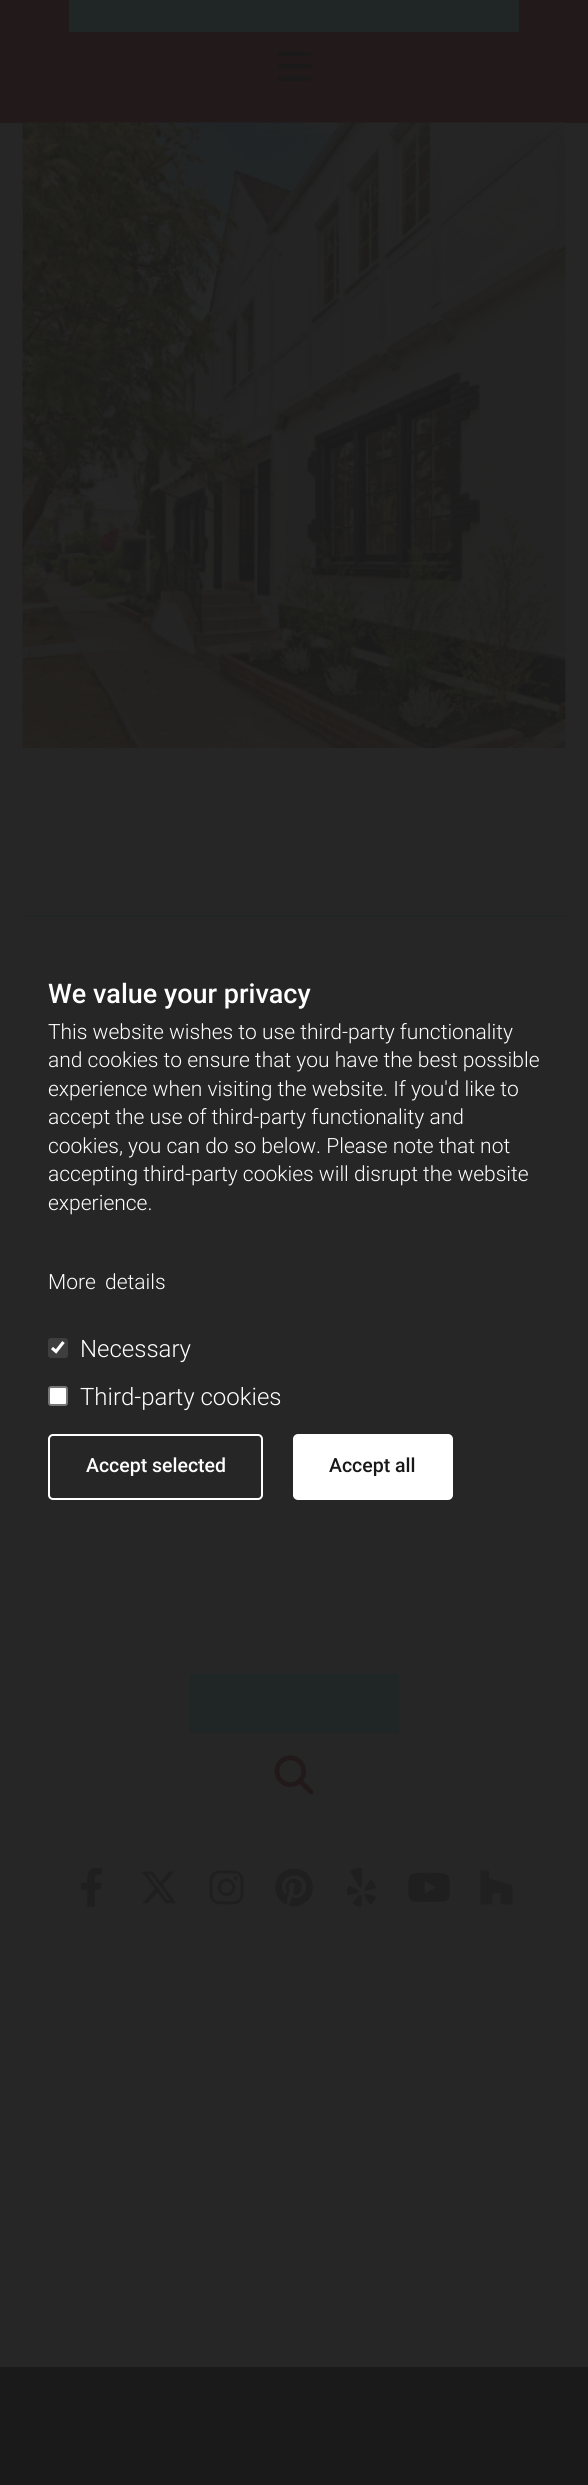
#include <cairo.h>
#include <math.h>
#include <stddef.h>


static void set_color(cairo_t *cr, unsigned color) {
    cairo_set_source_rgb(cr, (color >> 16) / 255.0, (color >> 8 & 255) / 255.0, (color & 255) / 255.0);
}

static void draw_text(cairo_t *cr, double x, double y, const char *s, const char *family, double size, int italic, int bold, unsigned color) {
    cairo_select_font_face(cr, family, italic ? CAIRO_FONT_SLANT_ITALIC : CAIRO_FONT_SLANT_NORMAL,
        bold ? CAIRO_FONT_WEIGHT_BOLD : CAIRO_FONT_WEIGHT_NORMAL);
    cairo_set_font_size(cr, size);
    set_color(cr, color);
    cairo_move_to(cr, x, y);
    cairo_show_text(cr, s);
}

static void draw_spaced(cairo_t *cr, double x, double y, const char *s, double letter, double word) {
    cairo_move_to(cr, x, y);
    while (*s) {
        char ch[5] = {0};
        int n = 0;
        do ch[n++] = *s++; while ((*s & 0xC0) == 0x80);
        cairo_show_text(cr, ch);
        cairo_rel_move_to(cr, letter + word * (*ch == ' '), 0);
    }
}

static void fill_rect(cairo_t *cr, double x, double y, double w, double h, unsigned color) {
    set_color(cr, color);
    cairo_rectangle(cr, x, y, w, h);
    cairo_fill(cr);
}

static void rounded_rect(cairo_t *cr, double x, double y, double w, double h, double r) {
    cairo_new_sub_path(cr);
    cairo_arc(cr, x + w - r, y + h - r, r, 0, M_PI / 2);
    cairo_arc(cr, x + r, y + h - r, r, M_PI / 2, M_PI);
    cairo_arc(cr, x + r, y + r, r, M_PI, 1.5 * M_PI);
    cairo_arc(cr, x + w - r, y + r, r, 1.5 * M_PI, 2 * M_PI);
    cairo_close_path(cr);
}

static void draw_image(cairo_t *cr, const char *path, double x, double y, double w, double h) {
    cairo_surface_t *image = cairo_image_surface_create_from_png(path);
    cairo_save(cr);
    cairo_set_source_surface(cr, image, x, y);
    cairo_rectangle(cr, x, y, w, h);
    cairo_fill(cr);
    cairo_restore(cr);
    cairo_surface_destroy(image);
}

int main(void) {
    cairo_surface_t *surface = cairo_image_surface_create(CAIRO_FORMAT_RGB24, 588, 2485);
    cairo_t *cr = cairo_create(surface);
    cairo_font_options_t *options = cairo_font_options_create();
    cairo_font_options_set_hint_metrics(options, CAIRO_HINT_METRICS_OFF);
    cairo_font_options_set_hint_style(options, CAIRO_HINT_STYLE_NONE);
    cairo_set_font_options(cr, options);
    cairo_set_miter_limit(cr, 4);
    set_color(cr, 0x262626);
    cairo_paint(cr);
    fill_rect(cr, 0, 0, 588, 123, 0x221A1A);
    fill_rect(cr, 69, 0, 450, 32, 0x202525);
    draw_image(cr, "assets/img1.png", 277, 51, 35, 30);
    draw_image(cr, "assets/img2.png", 22, 122, 544, 626);
    fill_rect(cr, 23, 915, 543, 2, 0x222525);
    fill_rect(cr, 189, 1674, 210, 59, 0x202525);
    draw_image(cr, "assets/img3.png", 274, 1755, 40, 40);
    draw_image(cr, "assets/img4.png", 81, 1867, 21, 40);
    draw_image(cr, "assets/img5.png", 141, 1871, 36, 33);
    draw_image(cr, "assets/img6.png", 209, 1870, 35, 35);
    draw_image(cr, "assets/img7.png", 275, 1868, 38, 39);
    draw_image(cr, "assets/img8.png", 346, 1867, 30, 40);
    draw_image(cr, "assets/img9.png", 408, 1872, 42, 30);
    set_color(cr, 0x202020);
    cairo_new_path(cr);
    cairo_move_to(cr, 500.5, 1893);
    cairo_line_to(cr, 492.5, 1893);
    cairo_line_to(cr, 492.5, 1904.5);
    cairo_line_to(cr, 480.5, 1904.5);
    cairo_line_to(cr, 480.5, 1870.5);
    cairo_line_to(cr, 489, 1870.5);
    cairo_line_to(cr, 489, 1878.5);
    cairo_line_to(cr, 512.5, 1885);
    cairo_line_to(cr, 512.5, 1904.5);
    cairo_line_to(cr, 500.5, 1904.5);
    cairo_close_path(cr);
    cairo_fill(cr);
    fill_rect(cr, 0, 2367, 588, 118, 0x1A1A1A);
    draw_text(cr, 48, 1003, "We value your privacy", "Roboto Medium", 27, 0, 0, 0xFFFFFF);
    draw_text(cr, 48, 1039, "This website wishes to use third-party functionality", "Roboto Light", 21, 0, 0, 0xFFFFFF);
    draw_text(cr, 48, 1067, "and cookies to ensure that you have the best possible", "Roboto Light", 21, 0, 0, 0xFFFFFF);
    draw_text(cr, 48, 1096, "experience when visiting the website. If you'd like to", "Roboto Light", 21, 0, 0, 0xFFFFFF);
    draw_text(cr, 48, 1124, "accept the use of third-party functionality and", "Roboto Light", 21, 0, 0, 0xFFFFFF);
    draw_text(cr, 48, 1153, "cookies, you can do so below. Please note that not", "Roboto Light", 21, 0, 0, 0xFFFFFF);
    draw_text(cr, 48, 1181, "accepting third-party cookies will disrupt the website", "Roboto Light", 21, 0, 0, 0xFFFFFF);
    draw_text(cr, 48, 1210, "experience.", "Roboto Light", 21, 0, 0, 0xFFFFFF);
    draw_spaced(cr, 48, 1289, "More details", 0, 4);
    set_color(cr, 0x3E3E3E);
    rounded_rect(cr, 48, 1338, 20, 20, 3);
    cairo_fill(cr);
    cairo_new_path(cr);
    cairo_move_to(cr, 52, 1348);
    cairo_line_to(cr, 56, 1351.5);
    cairo_line_to(cr, 63.5, 1342);
    set_color(cr, 0xFFFFFF);
    cairo_set_line_width(cr, 3.1);
    cairo_stroke(cr);
    draw_text(cr, 80, 1357, "Necessary", "Roboto Light", 24, 0, 0, 0xFFFFFF);
    rounded_rect(cr, 49, 1387, 18, 18, 2);
    cairo_fill_preserve(cr);
    set_color(cr, 0x767676);
    cairo_set_line_width(cr, 2);
    cairo_stroke(cr);
    draw_text(cr, 80, 1405, "Third-party cookies", "Roboto Light", 24, 0, 0, 0xFFFFFF);
    rounded_rect(cr, 49, 1435, 213, 64, 4);
    cairo_stroke(cr);
    draw_text(cr, 86, 1472, "Accept selected", "Roboto Medium", 19.5, 0, 0, 0xFFFFFF);
    rounded_rect(cr, 294, 1435, 158, 64, 4);
    cairo_fill_preserve(cr);
    cairo_stroke(cr);
    draw_text(cr, 329, 1472, "Accept all", "Roboto Medium", 19.5, 0, 0, 0x181818);
    cairo_surface_write_to_png(surface, "output.png");
    cairo_font_options_destroy(options);
    cairo_destroy(cr);
    cairo_surface_destroy(surface);
    return 0;
}
